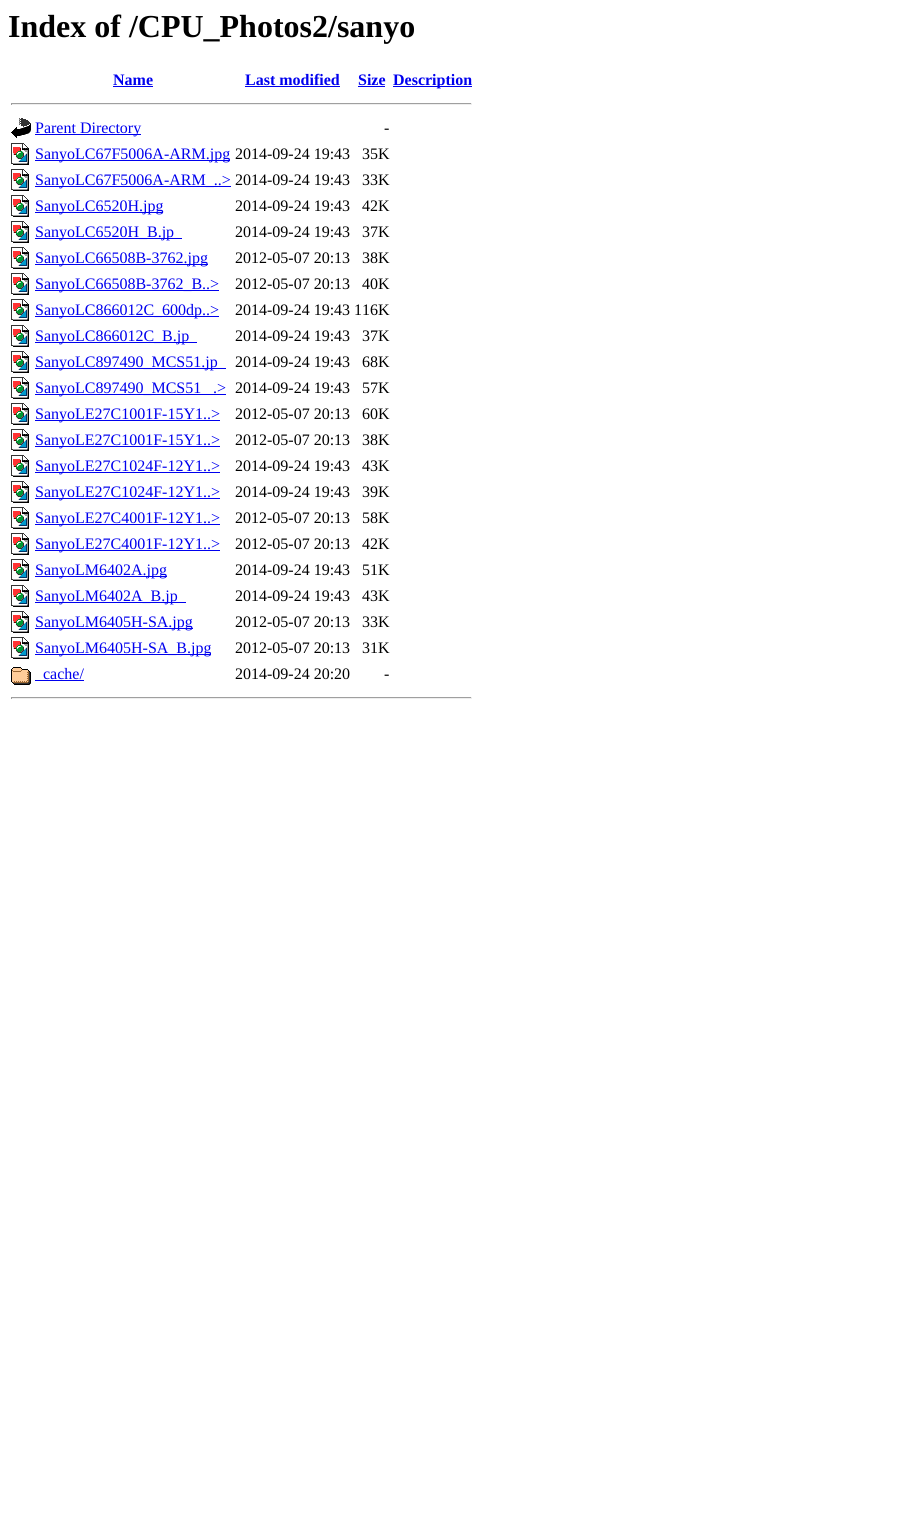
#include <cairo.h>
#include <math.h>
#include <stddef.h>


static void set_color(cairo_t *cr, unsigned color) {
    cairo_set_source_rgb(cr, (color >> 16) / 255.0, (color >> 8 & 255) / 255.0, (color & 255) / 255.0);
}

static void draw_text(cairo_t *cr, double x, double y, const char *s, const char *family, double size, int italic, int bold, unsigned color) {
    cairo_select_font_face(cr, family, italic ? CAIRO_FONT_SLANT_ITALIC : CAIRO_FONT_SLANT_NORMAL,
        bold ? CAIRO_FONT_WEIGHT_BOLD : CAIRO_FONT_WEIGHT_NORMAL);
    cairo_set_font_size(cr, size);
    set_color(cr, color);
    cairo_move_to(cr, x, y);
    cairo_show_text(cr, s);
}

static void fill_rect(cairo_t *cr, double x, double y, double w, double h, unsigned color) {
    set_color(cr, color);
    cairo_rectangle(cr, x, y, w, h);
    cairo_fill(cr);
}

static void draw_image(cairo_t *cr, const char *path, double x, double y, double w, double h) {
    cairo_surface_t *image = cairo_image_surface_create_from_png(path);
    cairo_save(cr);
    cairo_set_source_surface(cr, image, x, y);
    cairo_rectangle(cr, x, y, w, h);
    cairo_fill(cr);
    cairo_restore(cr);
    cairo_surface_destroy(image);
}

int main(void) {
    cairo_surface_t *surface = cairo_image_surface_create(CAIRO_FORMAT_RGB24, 919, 1527);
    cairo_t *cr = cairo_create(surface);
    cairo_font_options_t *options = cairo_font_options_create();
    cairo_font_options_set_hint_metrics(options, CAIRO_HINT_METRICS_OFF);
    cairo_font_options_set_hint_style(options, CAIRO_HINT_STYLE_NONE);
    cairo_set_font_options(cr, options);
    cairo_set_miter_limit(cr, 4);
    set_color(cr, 0xFFFFFF);
    cairo_paint(cr);
    draw_text(cr, 8, 37, "Index of /CPU_Photos2/sanyo", "Liberation Serif", 32, 0, 1, 0x000000);
    draw_text(cr, 113, 85, "Name", "Liberation Serif", 16, 0, 1, 0x0000EE);
    fill_rect(cr, 113, 86, 40, 1, 0x0000EE);
    draw_text(cr, 245, 85, "Last modified", "Liberation Serif", 16, 0, 1, 0x0000EE);
    fill_rect(cr, 245, 86, 95, 1, 0x0000EE);
    draw_text(cr, 358, 85, "Size", "Liberation Serif", 16, 0, 1, 0x0000EE);
    fill_rect(cr, 358, 86, 27, 1, 0x0000EE);
    fill_rect(cr, 393, 86, 79, 1, 0x0000EE);
    draw_text(cr, 393, 85, "Description", "Liberation Serif", 16, 0, 1, 0x0000EE);
    fill_rect(cr, 11, 103, 461, 1, 0x9F9F9F);
    fill_rect(cr, 471, 103, 1, 2, 0xEEEEEE);
    fill_rect(cr, 11, 104, 461, 1, 0xEEEEEE);
    fill_rect(cr, 11, 103, 1, 2, 0x9F9F9F);
    draw_image(cr, "assets/img1.png", 11, 118, 20, 20);
    fill_rect(cr, 35, 134, 106, 1, 0x0000EE);
    draw_text(cr, 35, 133, "Parent Directory", "Liberation Serif", 16, 0, 0, 0x0000EE);
    draw_text(cr, 384, 133, "-", "Liberation Serif", 16, 0, 0, 0x000000);
    draw_image(cr, "assets/img2.png", 11, 143, 18, 22);
    fill_rect(cr, 35, 160, 195, 1, 0x0000EE);
    draw_text(cr, 35, 159, "SanyoLC67F5006A-ARM.jpg", "Liberation Serif", 16, 0, 0, 0x0000EE);
    draw_text(cr, 235, 159, "2014-09-24 19:43", "Liberation Serif", 16, 0, 0, 0x000000);
    draw_text(cr, 362, 159, "35K", "Liberation Serif", 16, 0, 0, 0x000000);
    draw_image(cr, "assets/img2.png", 11, 169, 18, 22);
    fill_rect(cr, 35, 186, 196, 1, 0x0000EE);
    draw_text(cr, 35, 185, "SanyoLC67F5006A-ARM_..>", "Liberation Serif", 16, 0, 0, 0x0000EE);
    draw_text(cr, 235, 185, "2014-09-24 19:43", "Liberation Serif", 16, 0, 0, 0x000000);
    draw_text(cr, 362, 185, "33K", "Liberation Serif", 16, 0, 0, 0x000000);
    draw_image(cr, "assets/img2.png", 11, 195, 18, 22);
    fill_rect(cr, 35, 212, 128, 1, 0x0000EE);
    draw_text(cr, 35, 211, "SanyoLC6520H.jpg", "Liberation Serif", 16, 0, 0, 0x0000EE);
    draw_text(cr, 235, 211, "2014-09-24 19:43", "Liberation Serif", 16, 0, 0, 0x000000);
    draw_text(cr, 362, 211, "42K", "Liberation Serif", 16, 0, 0, 0x000000);
    draw_image(cr, "assets/img2.png", 11, 221, 18, 22);
    fill_rect(cr, 35, 238, 147, 1, 0x0000EE);
    draw_text(cr, 35, 237, "SanyoLC6520H_B.jp", "Liberation Serif", 16, 0, 0, 0x0000EE);
    draw_text(cr, 235, 237, "2014-09-24 19:43", "Liberation Serif", 16, 0, 0, 0x000000);
    draw_text(cr, 362, 237, "37K", "Liberation Serif", 16, 0, 0, 0x000000);
    draw_image(cr, "assets/img2.png", 11, 247, 18, 22);
    fill_rect(cr, 35, 264, 173, 1, 0x0000EE);
    draw_text(cr, 35, 263, "SanyoLC66508B-3762.jpg", "Liberation Serif", 16, 0, 0, 0x0000EE);
    draw_text(cr, 235, 263, "2012-05-07 20:13", "Liberation Serif", 16, 0, 0, 0x000000);
    draw_text(cr, 362, 263, "38K", "Liberation Serif", 16, 0, 0, 0x000000);
    draw_image(cr, "assets/img2.png", 11, 273, 18, 22);
    fill_rect(cr, 35, 290, 184, 1, 0x0000EE);
    draw_text(cr, 35, 289, "SanyoLC66508B-3762_B..>", "Liberation Serif", 16, 0, 0, 0x0000EE);
    draw_text(cr, 235, 289, "2012-05-07 20:13", "Liberation Serif", 16, 0, 0, 0x000000);
    draw_text(cr, 362, 289, "40K", "Liberation Serif", 16, 0, 0, 0x000000);
    draw_image(cr, "assets/img2.png", 11, 299, 18, 22);
    fill_rect(cr, 35, 316, 184, 1, 0x0000EE);
    draw_text(cr, 35, 315, "SanyoLC866012C_600dp..>", "Liberation Serif", 16, 0, 0, 0x0000EE);
    draw_text(cr, 235, 315, "2014-09-24 19:43 116K", "Liberation Serif", 16, 0, 0, 0x000000);
    draw_image(cr, "assets/img2.png", 11, 325, 18, 22);
    fill_rect(cr, 35, 342, 162, 1, 0x0000EE);
    draw_text(cr, 35, 341, "SanyoLC866012C_B.jp", "Liberation Serif", 16, 0, 0, 0x0000EE);
    draw_text(cr, 235, 341, "2014-09-24 19:43", "Liberation Serif", 16, 0, 0, 0x000000);
    draw_text(cr, 362, 341, "37K", "Liberation Serif", 16, 0, 0, 0x000000);
    draw_image(cr, "assets/img2.png", 11, 351, 18, 22);
    fill_rect(cr, 35, 368, 191, 1, 0x0000EE);
    draw_text(cr, 35, 367, "SanyoLC897490_MCS51.jp", "Liberation Serif", 16, 0, 0, 0x0000EE);
    draw_text(cr, 235, 367, "2014-09-24 19:43", "Liberation Serif", 16, 0, 0, 0x000000);
    draw_text(cr, 362, 367, "68K", "Liberation Serif", 16, 0, 0, 0x000000);
    draw_image(cr, "assets/img2.png", 11, 377, 18, 22);
    fill_rect(cr, 35, 394, 191, 1, 0x0000EE);
    draw_text(cr, 35, 393, "SanyoLC897490_MCS51", "Liberation Serif", 16, 0, 0, 0x0000EE);
    draw_text(cr, 213, 393, ".>", "Liberation Serif", 16, 0, 0, 0x0000EE);
    draw_text(cr, 235, 393, "2014-09-24 19:43", "Liberation Serif", 16, 0, 0, 0x000000);
    draw_text(cr, 362, 393, "57K", "Liberation Serif", 16, 0, 0, 0x000000);
    draw_image(cr, "assets/img2.png", 11, 403, 18, 22);
    fill_rect(cr, 35, 420, 185, 1, 0x0000EE);
    draw_text(cr, 35, 419, "SanyoLE27C1001F-15Y1..>", "Liberation Serif", 16, 0, 0, 0x0000EE);
    draw_text(cr, 235, 419, "2012-05-07 20:13", "Liberation Serif", 16, 0, 0, 0x000000);
    draw_text(cr, 362, 419, "60K", "Liberation Serif", 16, 0, 0, 0x000000);
    draw_image(cr, "assets/img2.png", 11, 429, 18, 22);
    fill_rect(cr, 35, 446, 185, 1, 0x0000EE);
    draw_text(cr, 35, 445, "SanyoLE27C1001F-15Y1..>", "Liberation Serif", 16, 0, 0, 0x0000EE);
    draw_text(cr, 235, 445, "2012-05-07 20:13", "Liberation Serif", 16, 0, 0, 0x000000);
    draw_text(cr, 362, 445, "38K", "Liberation Serif", 16, 0, 0, 0x000000);
    draw_image(cr, "assets/img2.png", 11, 455, 18, 22);
    fill_rect(cr, 35, 472, 185, 1, 0x0000EE);
    draw_text(cr, 35, 471, "SanyoLE27C1024F-12Y1..>", "Liberation Serif", 16, 0, 0, 0x0000EE);
    draw_text(cr, 235, 471, "2014-09-24 19:43", "Liberation Serif", 16, 0, 0, 0x000000);
    draw_text(cr, 362, 471, "43K", "Liberation Serif", 16, 0, 0, 0x000000);
    draw_image(cr, "assets/img2.png", 11, 481, 18, 22);
    fill_rect(cr, 35, 498, 185, 1, 0x0000EE);
    draw_text(cr, 35, 497, "SanyoLE27C1024F-12Y1..>", "Liberation Serif", 16, 0, 0, 0x0000EE);
    draw_text(cr, 235, 497, "2014-09-24 19:43", "Liberation Serif", 16, 0, 0, 0x000000);
    draw_text(cr, 362, 497, "39K", "Liberation Serif", 16, 0, 0, 0x000000);
    draw_image(cr, "assets/img2.png", 11, 507, 18, 22);
    fill_rect(cr, 35, 524, 185, 1, 0x0000EE);
    draw_text(cr, 35, 523, "SanyoLE27C4001F-12Y1..>", "Liberation Serif", 16, 0, 0, 0x0000EE);
    draw_text(cr, 235, 523, "2012-05-07 20:13", "Liberation Serif", 16, 0, 0, 0x000000);
    draw_text(cr, 362, 523, "58K", "Liberation Serif", 16, 0, 0, 0x000000);
    draw_image(cr, "assets/img2.png", 11, 533, 18, 22);
    fill_rect(cr, 35, 550, 185, 1, 0x0000EE);
    draw_text(cr, 35, 549, "SanyoLE27C4001F-12Y1..>", "Liberation Serif", 16, 0, 0, 0x0000EE);
    draw_text(cr, 235, 549, "2012-05-07 20:13", "Liberation Serif", 16, 0, 0, 0x000000);
    draw_text(cr, 362, 549, "42K", "Liberation Serif", 16, 0, 0, 0x000000);
    draw_image(cr, "assets/img2.png", 11, 559, 18, 22);
    fill_rect(cr, 35, 576, 132, 1, 0x0000EE);
    draw_text(cr, 35, 575, "SanyoLM6402A.jpg", "Liberation Serif", 16, 0, 0, 0x0000EE);
    draw_text(cr, 235, 575, "2014-09-24 19:43", "Liberation Serif", 16, 0, 0, 0x000000);
    draw_text(cr, 362, 575, "51K", "Liberation Serif", 16, 0, 0, 0x000000);
    draw_image(cr, "assets/img2.png", 11, 585, 18, 22);
    fill_rect(cr, 35, 602, 151, 1, 0x0000EE);
    draw_text(cr, 35, 601, "SanyoLM6402A_B.jp", "Liberation Serif", 16, 0, 0, 0x0000EE);
    draw_text(cr, 235, 601, "2014-09-24 19:43", "Liberation Serif", 16, 0, 0, 0x000000);
    draw_text(cr, 362, 601, "43K", "Liberation Serif", 16, 0, 0, 0x000000);
    draw_image(cr, "assets/img2.png", 11, 611, 18, 22);
    fill_rect(cr, 35, 628, 158, 1, 0x0000EE);
    draw_text(cr, 35, 627, "SanyoLM6405H-SA.jpg", "Liberation Serif", 16, 0, 0, 0x0000EE);
    draw_text(cr, 235, 627, "2012-05-07 20:13", "Liberation Serif", 16, 0, 0, 0x000000);
    draw_text(cr, 362, 627, "33K", "Liberation Serif", 16, 0, 0, 0x000000);
    draw_image(cr, "assets/img2.png", 11, 637, 18, 22);
    fill_rect(cr, 35, 654, 176, 1, 0x0000EE);
    draw_text(cr, 35, 653, "SanyoLM6405H-SA_B.jpg", "Liberation Serif", 16, 0, 0, 0x0000EE);
    draw_text(cr, 235, 653, "2012-05-07 20:13", "Liberation Serif", 16, 0, 0, 0x000000);
    draw_text(cr, 362, 653, "31K", "Liberation Serif", 16, 0, 0, 0x000000);
    draw_image(cr, "assets/img3.png", 11, 667, 20, 18);
    draw_text(cr, 43, 679, "cache/", "Liberation Serif", 16, 0, 0, 0x0000EE);
    fill_rect(cr, 35, 680, 49, 1, 0x0000EE);
    draw_text(cr, 235, 679, "2014-09-24 20:20", "Liberation Serif", 16, 0, 0, 0x000000);
    draw_text(cr, 384, 679, "-", "Liberation Serif", 16, 0, 0, 0x000000);
    fill_rect(cr, 11, 697, 461, 1, 0x9F9F9F);
    fill_rect(cr, 471, 697, 1, 2, 0xEEEEEE);
    fill_rect(cr, 11, 698, 461, 1, 0xEEEEEE);
    fill_rect(cr, 11, 697, 1, 2, 0x9F9F9F);
    cairo_surface_write_to_png(surface, "output.png");
    cairo_font_options_destroy(options);
    cairo_destroy(cr);
    cairo_surface_destroy(surface);
    return 0;
}
